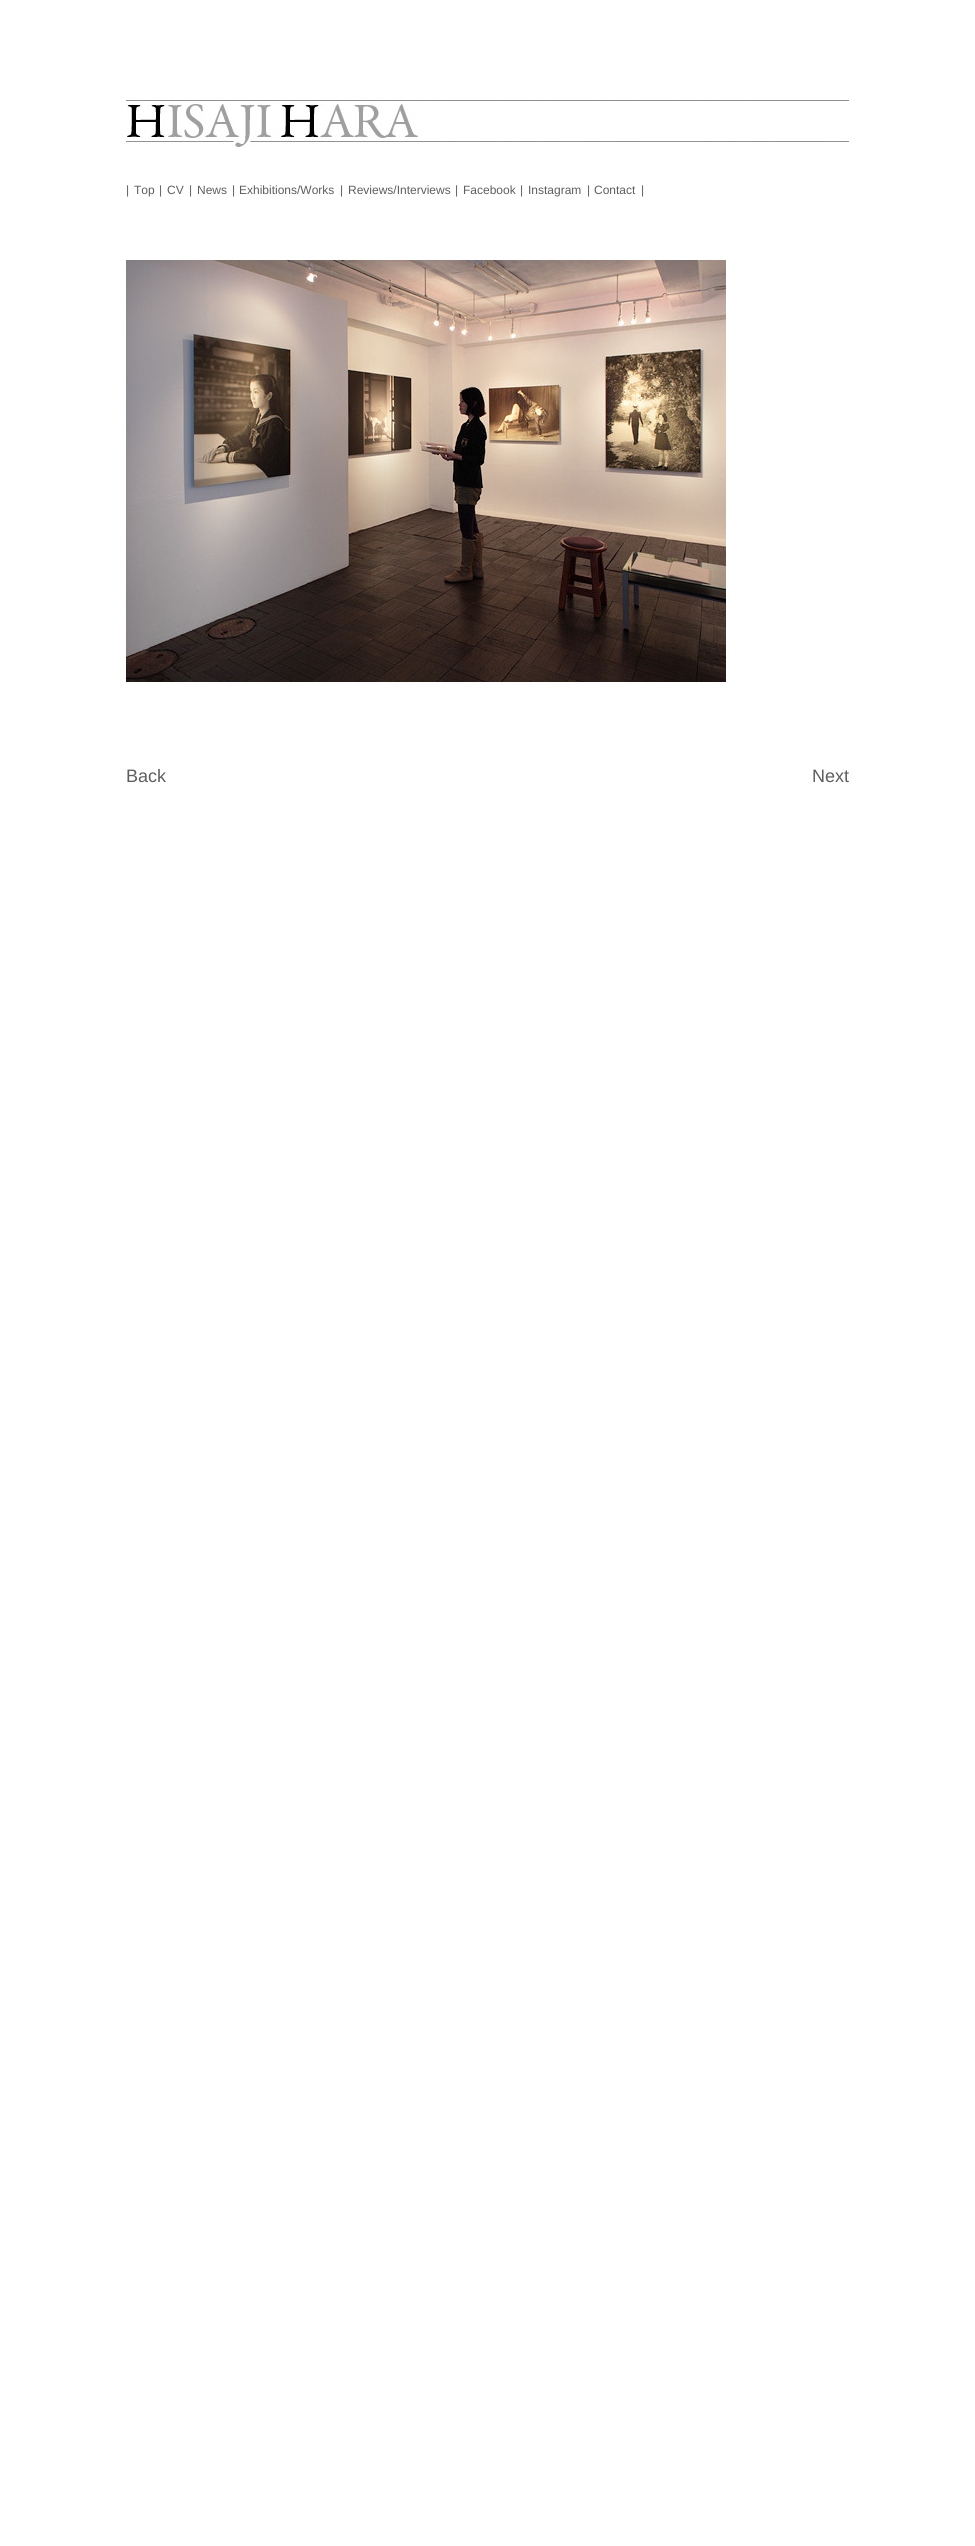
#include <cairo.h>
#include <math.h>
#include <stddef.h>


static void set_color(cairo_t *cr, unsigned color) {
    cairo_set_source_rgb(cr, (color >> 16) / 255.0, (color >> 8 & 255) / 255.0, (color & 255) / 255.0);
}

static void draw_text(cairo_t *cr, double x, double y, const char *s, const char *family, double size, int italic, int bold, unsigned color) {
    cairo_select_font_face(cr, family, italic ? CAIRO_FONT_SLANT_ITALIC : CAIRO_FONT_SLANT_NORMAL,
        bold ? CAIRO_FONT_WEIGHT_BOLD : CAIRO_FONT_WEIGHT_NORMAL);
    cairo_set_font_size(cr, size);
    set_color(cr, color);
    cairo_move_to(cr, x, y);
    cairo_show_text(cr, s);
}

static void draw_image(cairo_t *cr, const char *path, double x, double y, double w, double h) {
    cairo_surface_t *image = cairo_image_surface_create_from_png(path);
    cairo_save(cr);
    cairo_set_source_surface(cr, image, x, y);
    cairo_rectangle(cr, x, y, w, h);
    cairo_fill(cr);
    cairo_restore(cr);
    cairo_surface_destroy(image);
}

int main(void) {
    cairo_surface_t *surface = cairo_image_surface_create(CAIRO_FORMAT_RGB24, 975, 2546);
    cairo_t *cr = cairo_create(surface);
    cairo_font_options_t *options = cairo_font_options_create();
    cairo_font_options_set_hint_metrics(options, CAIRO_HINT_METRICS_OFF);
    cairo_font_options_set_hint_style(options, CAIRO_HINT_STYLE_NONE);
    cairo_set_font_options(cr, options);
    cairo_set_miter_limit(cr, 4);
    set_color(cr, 0xFFFFFF);
    cairo_paint(cr);
    draw_image(cr, "assets/img1.png", 126, 100, 723, 47);
    draw_text(cr, 126, 194, "|", "Liberation Sans", 12, 0, 0, 0x5E5E5E);
    draw_text(cr, 134, 194, "Top", "Liberation Sans", 12, 0, 0, 0x5E5E5E);
    draw_text(cr, 159, 194, "|", "Liberation Sans", 12, 0, 0, 0x5E5E5E);
    draw_text(cr, 167, 194, "CV", "Liberation Sans", 12, 0, 0, 0x5E5E5E);
    draw_text(cr, 189, 194, "|", "Liberation Sans", 12, 0, 0, 0x5E5E5E);
    draw_text(cr, 197, 194, "News", "Liberation Sans", 12, 0, 0, 0x5E5E5E);
    draw_text(cr, 232, 194, "|", "Liberation Sans", 12, 0, 0, 0x5E5E5E);
    draw_text(cr, 239, 194, "Exhibitions/Works", "Liberation Sans", 12, 0, 0, 0x5E5E5E);
    draw_text(cr, 340, 194, "|", "Liberation Sans", 12, 0, 0, 0x5E5E5E);
    draw_text(cr, 348, 194, "Reviews/Interviews", "Liberation Sans", 12, 0, 0, 0x5E5E5E);
    draw_text(cr, 455, 194, "|", "Liberation Sans", 12, 0, 0, 0x5E5E5E);
    draw_text(cr, 463, 194, "Facebook", "Liberation Sans", 12, 0, 0, 0x5E5E5E);
    draw_text(cr, 520, 194, "|", "Liberation Sans", 12, 0, 0, 0x5E5E5E);
    draw_text(cr, 528, 194, "Instagram", "Liberation Sans", 12, 0, 0, 0x5E5E5E);
    draw_text(cr, 587, 194, "|", "Liberation Sans", 12, 0, 0, 0x5E5E5E);
    draw_text(cr, 594, 194, "Contact", "Liberation Sans", 12, 0, 0, 0x5E5E5E);
    draw_text(cr, 641, 194, "|", "Liberation Sans", 12, 0, 0, 0x5E5E5E);
    draw_image(cr, "assets/img2.png", 126, 260, 600, 422);
    draw_text(cr, 126, 782, "Back", "Liberation Sans", 18, 0, 0, 0x5E5E5E);
    draw_text(cr, 812, 782, "Next", "Liberation Sans", 18, 0, 0, 0x5E5E5E);
    cairo_surface_write_to_png(surface, "output.png");
    cairo_font_options_destroy(options);
    cairo_destroy(cr);
    cairo_surface_destroy(surface);
    return 0;
}
